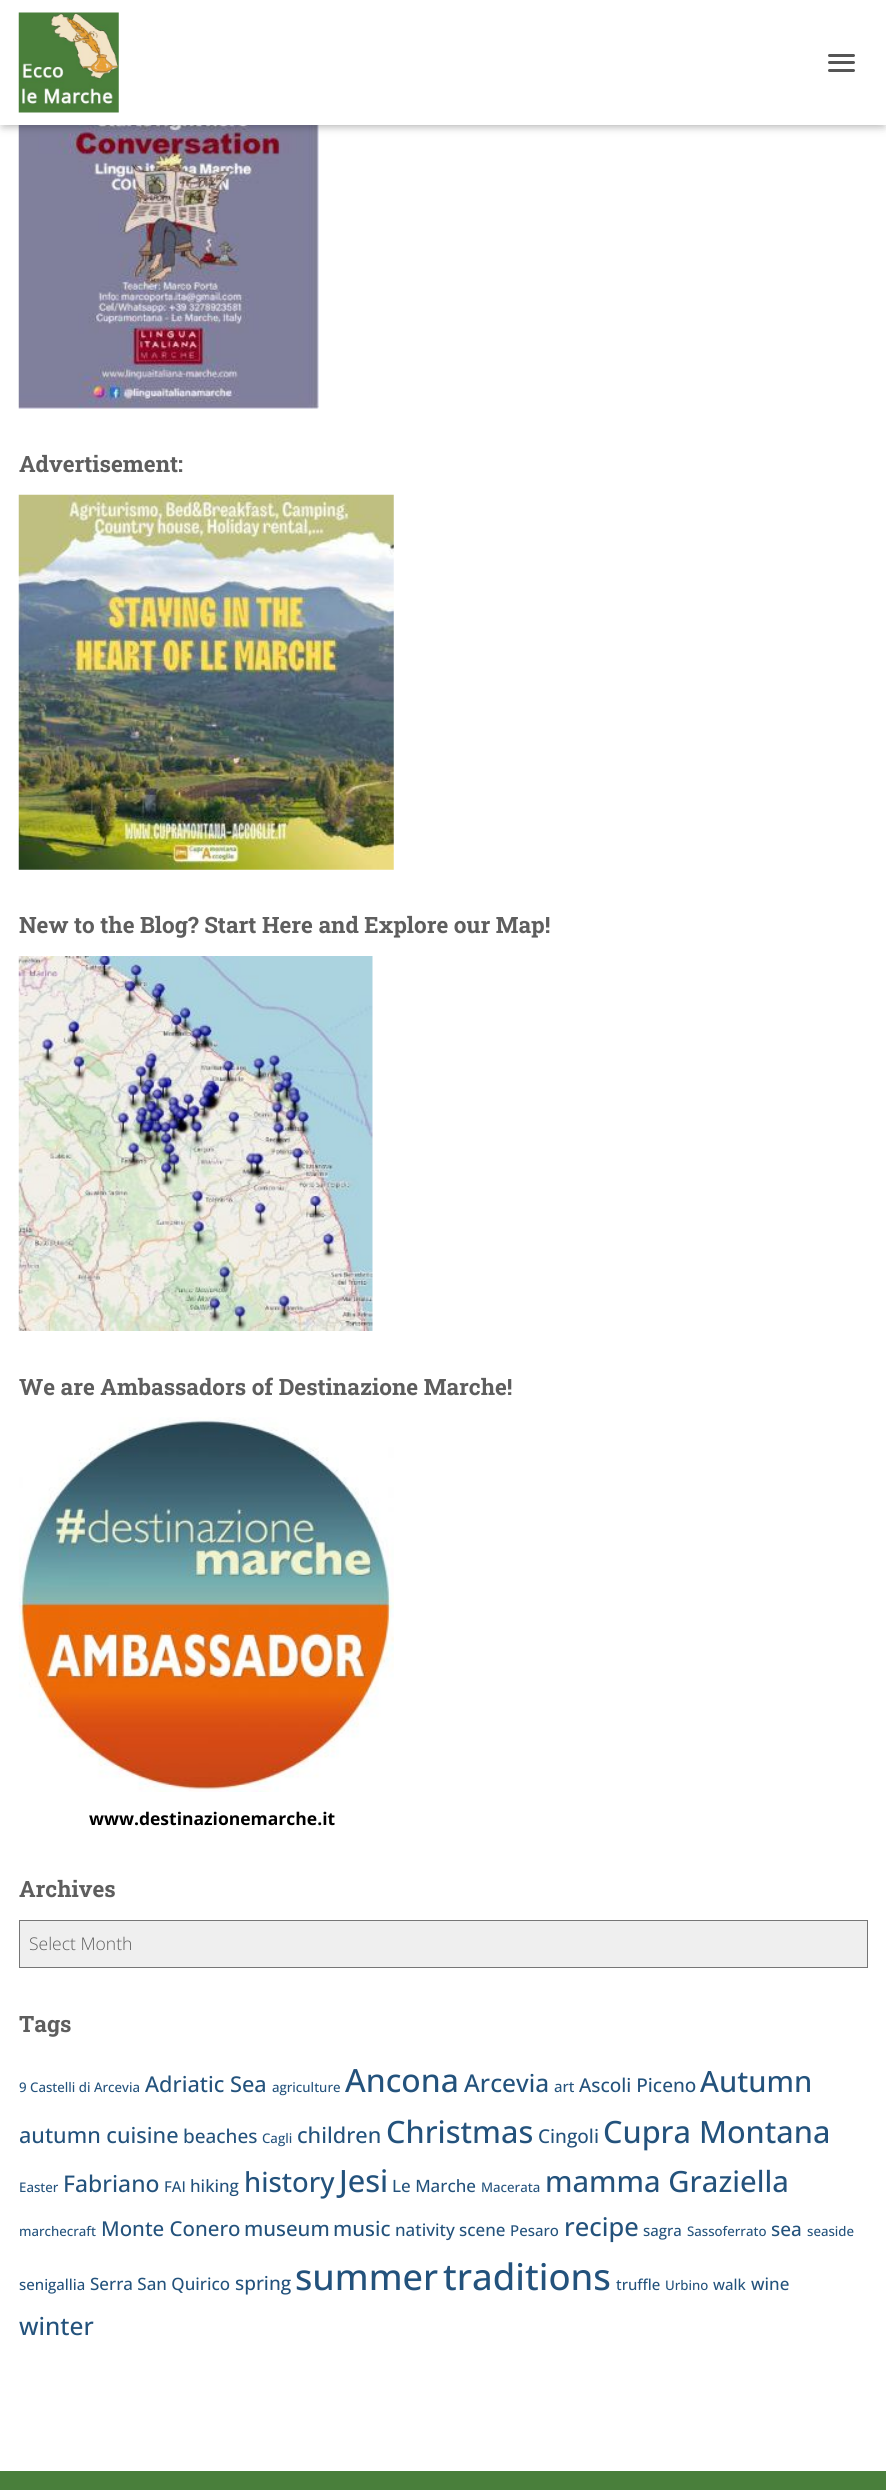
#include <cairo.h>
#include <math.h>
#include <stddef.h>


static void set_color(cairo_t *cr, unsigned color) {
    cairo_set_source_rgb(cr, (color >> 16) / 255.0, (color >> 8 & 255) / 255.0, (color & 255) / 255.0);
}

static void draw_text(cairo_t *cr, double x, double y, const char *s, const char *family, double size, int italic, int bold, unsigned color) {
    cairo_select_font_face(cr, family, italic ? CAIRO_FONT_SLANT_ITALIC : CAIRO_FONT_SLANT_NORMAL,
        bold ? CAIRO_FONT_WEIGHT_BOLD : CAIRO_FONT_WEIGHT_NORMAL);
    cairo_set_font_size(cr, size);
    set_color(cr, color);
    cairo_move_to(cr, x, y);
    cairo_show_text(cr, s);
}

static void fill_rect(cairo_t *cr, double x, double y, double w, double h, unsigned color) {
    set_color(cr, color);
    cairo_rectangle(cr, x, y, w, h);
    cairo_fill(cr);
}

static void rounded_rect(cairo_t *cr, double x, double y, double w, double h, double r) {
    cairo_new_sub_path(cr);
    cairo_arc(cr, x + w - r, y + h - r, r, 0, M_PI / 2);
    cairo_arc(cr, x + r, y + h - r, r, M_PI / 2, M_PI);
    cairo_arc(cr, x + r, y + r, r, M_PI, 1.5 * M_PI);
    cairo_arc(cr, x + w - r, y + r, r, 1.5 * M_PI, 2 * M_PI);
    cairo_close_path(cr);
}

static void draw_shadow(cairo_t *cr, double x, double y, double w, double h, double r, double blur, double alpha) {
    cairo_push_group_with_content(cr, CAIRO_CONTENT_ALPHA);
    cairo_set_operator(cr, CAIRO_OPERATOR_SOURCE);
    for (int i = 15; i >= -15 && fmin(w, h) + blur * i / 3 > 0; i -= 2) {
        double e = blur * i / 6;
        cairo_set_source_rgba(cr, 0, 0, 0, alpha * erfc((i - 1) / 8.5) / 2);
        rounded_rect(cr, x - e, y - e, w + 2 * e, h + 2 * e, fmax(0, fmin(r + e + blur * .6, fmin(w, h) / 2 + e)));
        cairo_fill(cr);
    }
    cairo_pattern_t *soft = cairo_pop_group(cr);
    cairo_mask(cr, soft);
    cairo_pattern_destroy(soft);
}

static void draw_image(cairo_t *cr, const char *path, double x, double y, double w, double h) {
    cairo_surface_t *image = cairo_image_surface_create_from_png(path);
    cairo_save(cr);
    cairo_set_source_surface(cr, image, x, y);
    cairo_rectangle(cr, x, y, w, h);
    cairo_fill(cr);
    cairo_restore(cr);
    cairo_surface_destroy(image);
}

int main(void) {
    cairo_surface_t *surface = cairo_image_surface_create(CAIRO_FORMAT_RGB24, 886, 2490);
    cairo_t *cr = cairo_create(surface);
    cairo_font_options_t *options = cairo_font_options_create();
    cairo_font_options_set_hint_metrics(options, CAIRO_HINT_METRICS_OFF);
    cairo_font_options_set_hint_style(options, CAIRO_HINT_STYLE_NONE);
    cairo_set_font_options(cr, options);
    cairo_set_miter_limit(cr, 4);
    set_color(cr, 0x497F3B);
    cairo_paint(cr);
    fill_rect(cr, 0, 125, 886, 2346, 0xFFFFFF);
    draw_image(cr, "assets/img2.png", 18, 125, 301, 284);
    set_color(cr, 0x000000);
    draw_shadow(cr, 3, 8, 881, 120, 0, 3, 0.1);
    draw_shadow(cr, 0, 1, 886, 125, 0, 6, 0.12);
    draw_shadow(cr, 8, 9, 871, 110, 0, 6, 0.42);
    fill_rect(cr, 0, 0, 886, 125, 0xFFFFFF);
    draw_image(cr, "assets/img1.png", 18, 12, 101, 101);
    set_color(cr, 0x555555);
    rounded_rect(cr, 828, 54, 27, 3, 1.5);
    cairo_fill(cr);
    rounded_rect(cr, 828, 61, 27, 3, 1.5);
    cairo_fill(cr);
    rounded_rect(cr, 828, 69, 27, 3, 1.5);
    cairo_fill(cr);
    draw_text(cr, 19, 472, "Advertisement:", "Roboto Slab", 22.5, 0, 1, 0x5E5E5E);
    draw_image(cr, "assets/img3.png", 18, 494, 376, 376);
    draw_text(cr, 19, 933, "New to the Blog? Start Here and Explore our Map!", "Roboto Slab", 22.5, 0, 1, 0x5E5E5E);
    draw_image(cr, "assets/img4.png", 18, 956, 355, 375);
    draw_text(cr, 19, 1395, "We are Ambassadors of Destinazione Marche!", "Roboto Slab", 22.5, 0, 1, 0x5E5E5E);
    draw_image(cr, "assets/img5.png", 18, 1417, 376, 375);
    draw_text(cr, 89, 1825, "www.destinazionemarche.it", "Open Sans", 17.5, 0, 1, 0x000000);
    draw_text(cr, 19, 1897, "Archives", "Roboto Slab", 22.5, 0, 1, 0x5E5E5E);
    set_color(cr, 0xEFEFEF);
    cairo_rectangle(cr, 19.5, 1920.5, 848, 47);
    cairo_fill_preserve(cr);
    set_color(cr, 0x767676);
    cairo_set_line_width(cr, 1);
    cairo_stroke(cr);
    draw_text(cr, 29, 1950, "Select Month", "Open Sans Light", 17.5, 0, 0, 0x5E5E5E);
    draw_text(cr, 19, 2032, "Tags", "Roboto Slab", 22.5, 0, 1, 0x5E5E5E);
    draw_text(cr, 19, 2092, "9 Castelli di Arcevia", "Open Sans Medium", 13.25, 0, 0, 0x23527C);
    draw_text(cr, 145, 2092, "Adriatic Sea", "Open Sans Medium", 21.75, 0, 0, 0x23527C);
    draw_text(cr, 272, 2092, "agriculture", "Open Sans Medium", 13.25, 0, 0, 0x23527C);
    draw_text(cr, 345, 2092, "Ancona", "Open Sans Medium", 32, 0, 0, 0x23527C);
    draw_text(cr, 464, 2092, "Arcevia", "Open Sans Medium", 24.5, 0, 0, 0x23527C);
    draw_text(cr, 554, 2092, "art", "Open Sans Medium", 15, 0, 0, 0x23527C);
    draw_text(cr, 579, 2092, "Ascoli Piceno", "Open Sans Medium", 19, 0, 0, 0x23527C);
    draw_text(cr, 700, 2092, "Autumn", "Open Sans Medium", 29.25, 0, 0, 0x23527C);
    draw_text(cr, 19, 2143, "autumn cuisine", "Open Sans Medium", 21.75, 0, 0, 0x23527C);
    draw_text(cr, 183, 2143, "beaches", "Open Sans Medium", 19, 0, 0, 0x23527C);
    draw_text(cr, 262, 2143, "Cagli", "Open Sans Medium", 13.25, 0, 0, 0x23527C);
    draw_text(cr, 297, 2143, "children", "Open Sans Medium", 21.75, 0, 0, 0x23527C);
    draw_text(cr, 386, 2143, "Christmas", "Open Sans Medium", 30.75, 0, 0, 0x23527C);
    draw_text(cr, 538, 2143, "Cingoli", "Open Sans Medium", 19, 0, 0, 0x23527C);
    draw_text(cr, 603, 2143, "Cupra Montana", "Open Sans Medium", 30.75, 0, 0, 0x23527C);
    draw_text(cr, 19, 2192, "Easter", "Open Sans Medium", 13.25, 0, 0, 0x23527C);
    draw_text(cr, 63, 2192, "Fabriano", "Open Sans Medium", 23, 0, 0, 0x23527C);
    draw_text(cr, 164, 2192, "FAI", "Open Sans Medium", 15, 0, 0, 0x23527C);
    draw_text(cr, 190, 2192, "hiking", "Open Sans Medium", 17, 0, 0, 0x23527C);
    draw_text(cr, 244, 2192, "history", "Open Sans Medium", 27.5, 0, 0, 0x23527C);
    draw_text(cr, 339, 2192, "Jesi", "Open Sans Medium", 30.75, 0, 0, 0x23527C);
    draw_text(cr, 392, 2192, "Le Marche", "Open Sans Medium", 17, 0, 0, 0x23527C);
    draw_text(cr, 481, 2192, "Macerata", "Open Sans Medium", 13.25, 0, 0, 0x23527C);
    draw_text(cr, 545, 2192, "mamma Graziella", "Open Sans Medium", 29.25, 0, 0, 0x23527C);
    draw_text(cr, 19, 2236, "marchecraft", "Open Sans Medium", 13.25, 0, 0, 0x23527C);
    draw_text(cr, 101, 2236, "Monte Conero", "Open Sans Medium", 20.5, 0, 0, 0x23527C);
    draw_text(cr, 244, 2236, "museum", "Open Sans Medium", 20.5, 0, 0, 0x23527C);
    draw_text(cr, 333, 2236, "music", "Open Sans Medium", 20.5, 0, 0, 0x23527C);
    draw_text(cr, 395, 2236, "nativity scene", "Open Sans Medium", 17, 0, 0, 0x23527C);
    draw_text(cr, 510, 2236, "Pesaro", "Open Sans Medium", 15, 0, 0, 0x23527C);
    draw_text(cr, 564, 2236, "recipe", "Open Sans Medium", 25.5, 0, 0, 0x23527C);
    draw_text(cr, 643, 2236, "sagra", "Open Sans Medium", 15, 0, 0, 0x23527C);
    draw_text(cr, 687, 2236, "Sassoferrato", "Open Sans Medium", 13.25, 0, 0, 0x23527C);
    draw_text(cr, 771, 2236, "sea", "Open Sans Medium", 19, 0, 0, 0x23527C);
    draw_text(cr, 807, 2236, "seaside", "Open Sans Medium", 13.25, 0, 0, 0x23527C);
    draw_text(cr, 19, 2290, "senigallia", "Open Sans Medium", 15, 0, 0, 0x23527C);
    draw_text(cr, 90, 2290, "Serra San Quirico", "Open Sans Medium", 17, 0, 0, 0x23527C);
    draw_text(cr, 235, 2290, "spring", "Open Sans Medium", 19, 0, 0, 0x23527C);
    draw_text(cr, 295, 2290, "summer", "Open Sans Medium", 36, 0, 0, 0x23527C);
    draw_text(cr, 443, 2290, "traditions", "Open Sans Medium", 36.5, 0, 0, 0x23527C);
    draw_text(cr, 616, 2290, "truffle", "Open Sans Medium", 15, 0, 0, 0x23527C);
    draw_text(cr, 665, 2290, "Urbino", "Open Sans Medium", 13.25, 0, 0, 0x23527C);
    draw_text(cr, 713, 2290, "walk", "Open Sans Medium", 15, 0, 0, 0x23527C);
    draw_text(cr, 751, 2290, "wine", "Open Sans Medium", 17, 0, 0, 0x23527C);
    draw_text(cr, 19, 2335, "winter", "Open Sans Medium", 24.5, 0, 0, 0x23527C);
    cairo_surface_write_to_png(surface, "output.png");
    cairo_font_options_destroy(options);
    cairo_destroy(cr);
    cairo_surface_destroy(surface);
    return 0;
}
